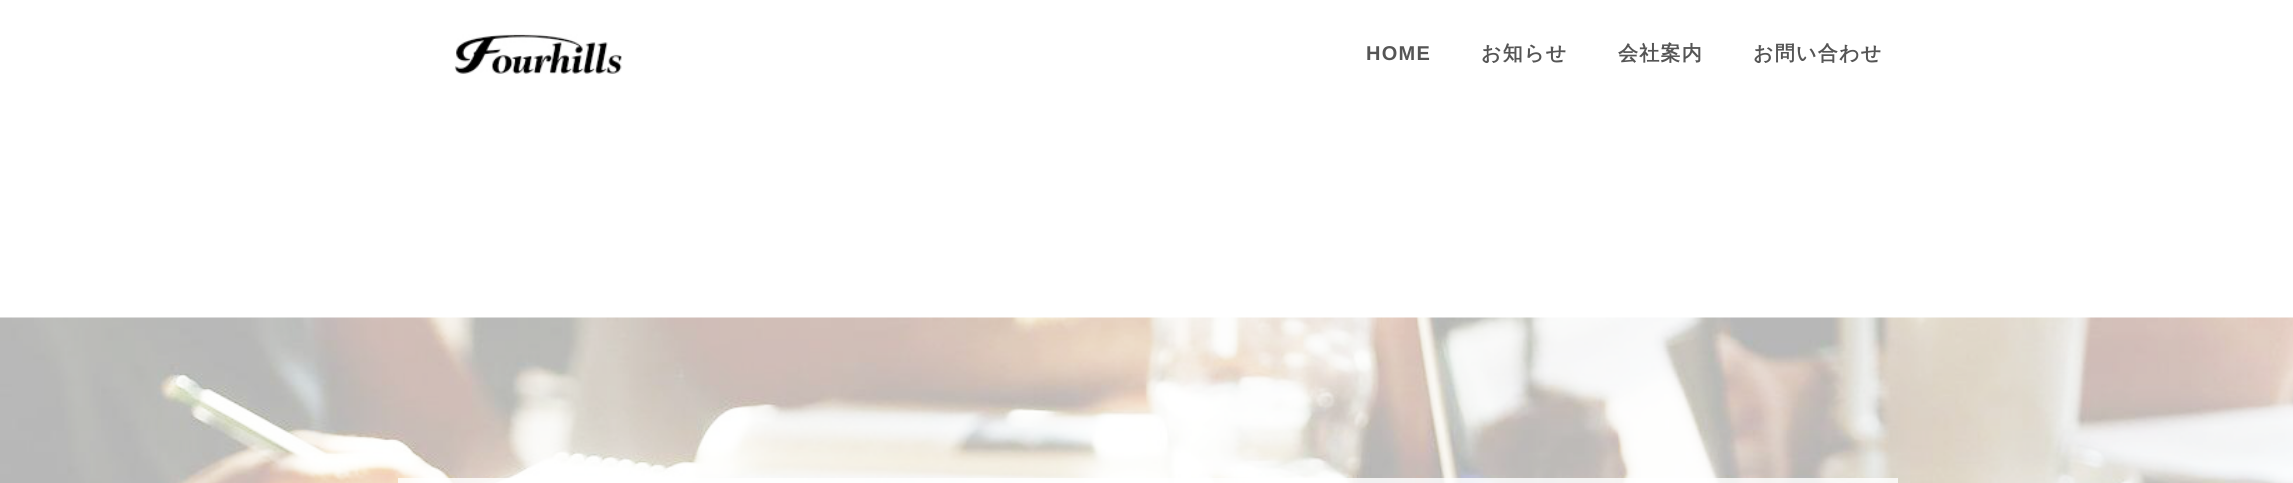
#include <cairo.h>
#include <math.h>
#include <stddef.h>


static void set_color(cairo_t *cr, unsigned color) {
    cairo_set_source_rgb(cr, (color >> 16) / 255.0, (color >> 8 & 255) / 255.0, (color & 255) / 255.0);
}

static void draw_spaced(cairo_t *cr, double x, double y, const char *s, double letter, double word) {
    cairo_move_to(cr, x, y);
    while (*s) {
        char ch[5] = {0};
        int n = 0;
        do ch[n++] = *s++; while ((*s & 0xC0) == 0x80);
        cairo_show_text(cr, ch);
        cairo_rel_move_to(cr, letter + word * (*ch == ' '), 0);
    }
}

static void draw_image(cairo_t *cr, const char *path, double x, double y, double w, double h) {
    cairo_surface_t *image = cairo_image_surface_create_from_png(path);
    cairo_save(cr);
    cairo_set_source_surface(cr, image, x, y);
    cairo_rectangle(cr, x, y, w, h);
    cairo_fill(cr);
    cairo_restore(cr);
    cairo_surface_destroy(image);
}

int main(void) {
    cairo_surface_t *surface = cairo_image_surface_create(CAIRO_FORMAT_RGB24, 2293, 483);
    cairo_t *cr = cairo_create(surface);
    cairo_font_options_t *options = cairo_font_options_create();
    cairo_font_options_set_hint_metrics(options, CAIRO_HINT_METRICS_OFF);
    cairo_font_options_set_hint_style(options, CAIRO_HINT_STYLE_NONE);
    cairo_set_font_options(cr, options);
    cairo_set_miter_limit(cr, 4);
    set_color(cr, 0xFFFFFF);
    cairo_paint(cr);
    draw_image(cr, "assets/img1.png", 454, 34, 168, 40);
    cairo_select_font_face(cr, "Liberation Sans", CAIRO_FONT_SLANT_NORMAL, CAIRO_FONT_WEIGHT_BOLD);
    cairo_set_font_size(cr, 20);
    set_color(cr, 0x555555);
    draw_spaced(cr, 1366, 60, "HOME", 1.25, 0);
    cairo_select_font_face(cr, "WenQuanYi Zen Hei", CAIRO_FONT_SLANT_NORMAL, CAIRO_FONT_WEIGHT_BOLD);
    draw_spaced(cr, 1481, 60, "お知らせ", 1.25, 0);
    draw_spaced(cr, 1618, 60, "会社案内", 1.25, 0);
    draw_spaced(cr, 1753, 60, "お問い合わせ", 1.25, 0);
    draw_image(cr, "assets/img2.png", 0, 317, 2293, 166);
    cairo_set_source_rgba(cr, 1, 1, 1, 0.8);
    cairo_rectangle(cr, 398, 478, 1500, 5);
    cairo_fill(cr);
    cairo_surface_write_to_png(surface, "output.png");
    cairo_font_options_destroy(options);
    cairo_destroy(cr);
    cairo_surface_destroy(surface);
    return 0;
}
